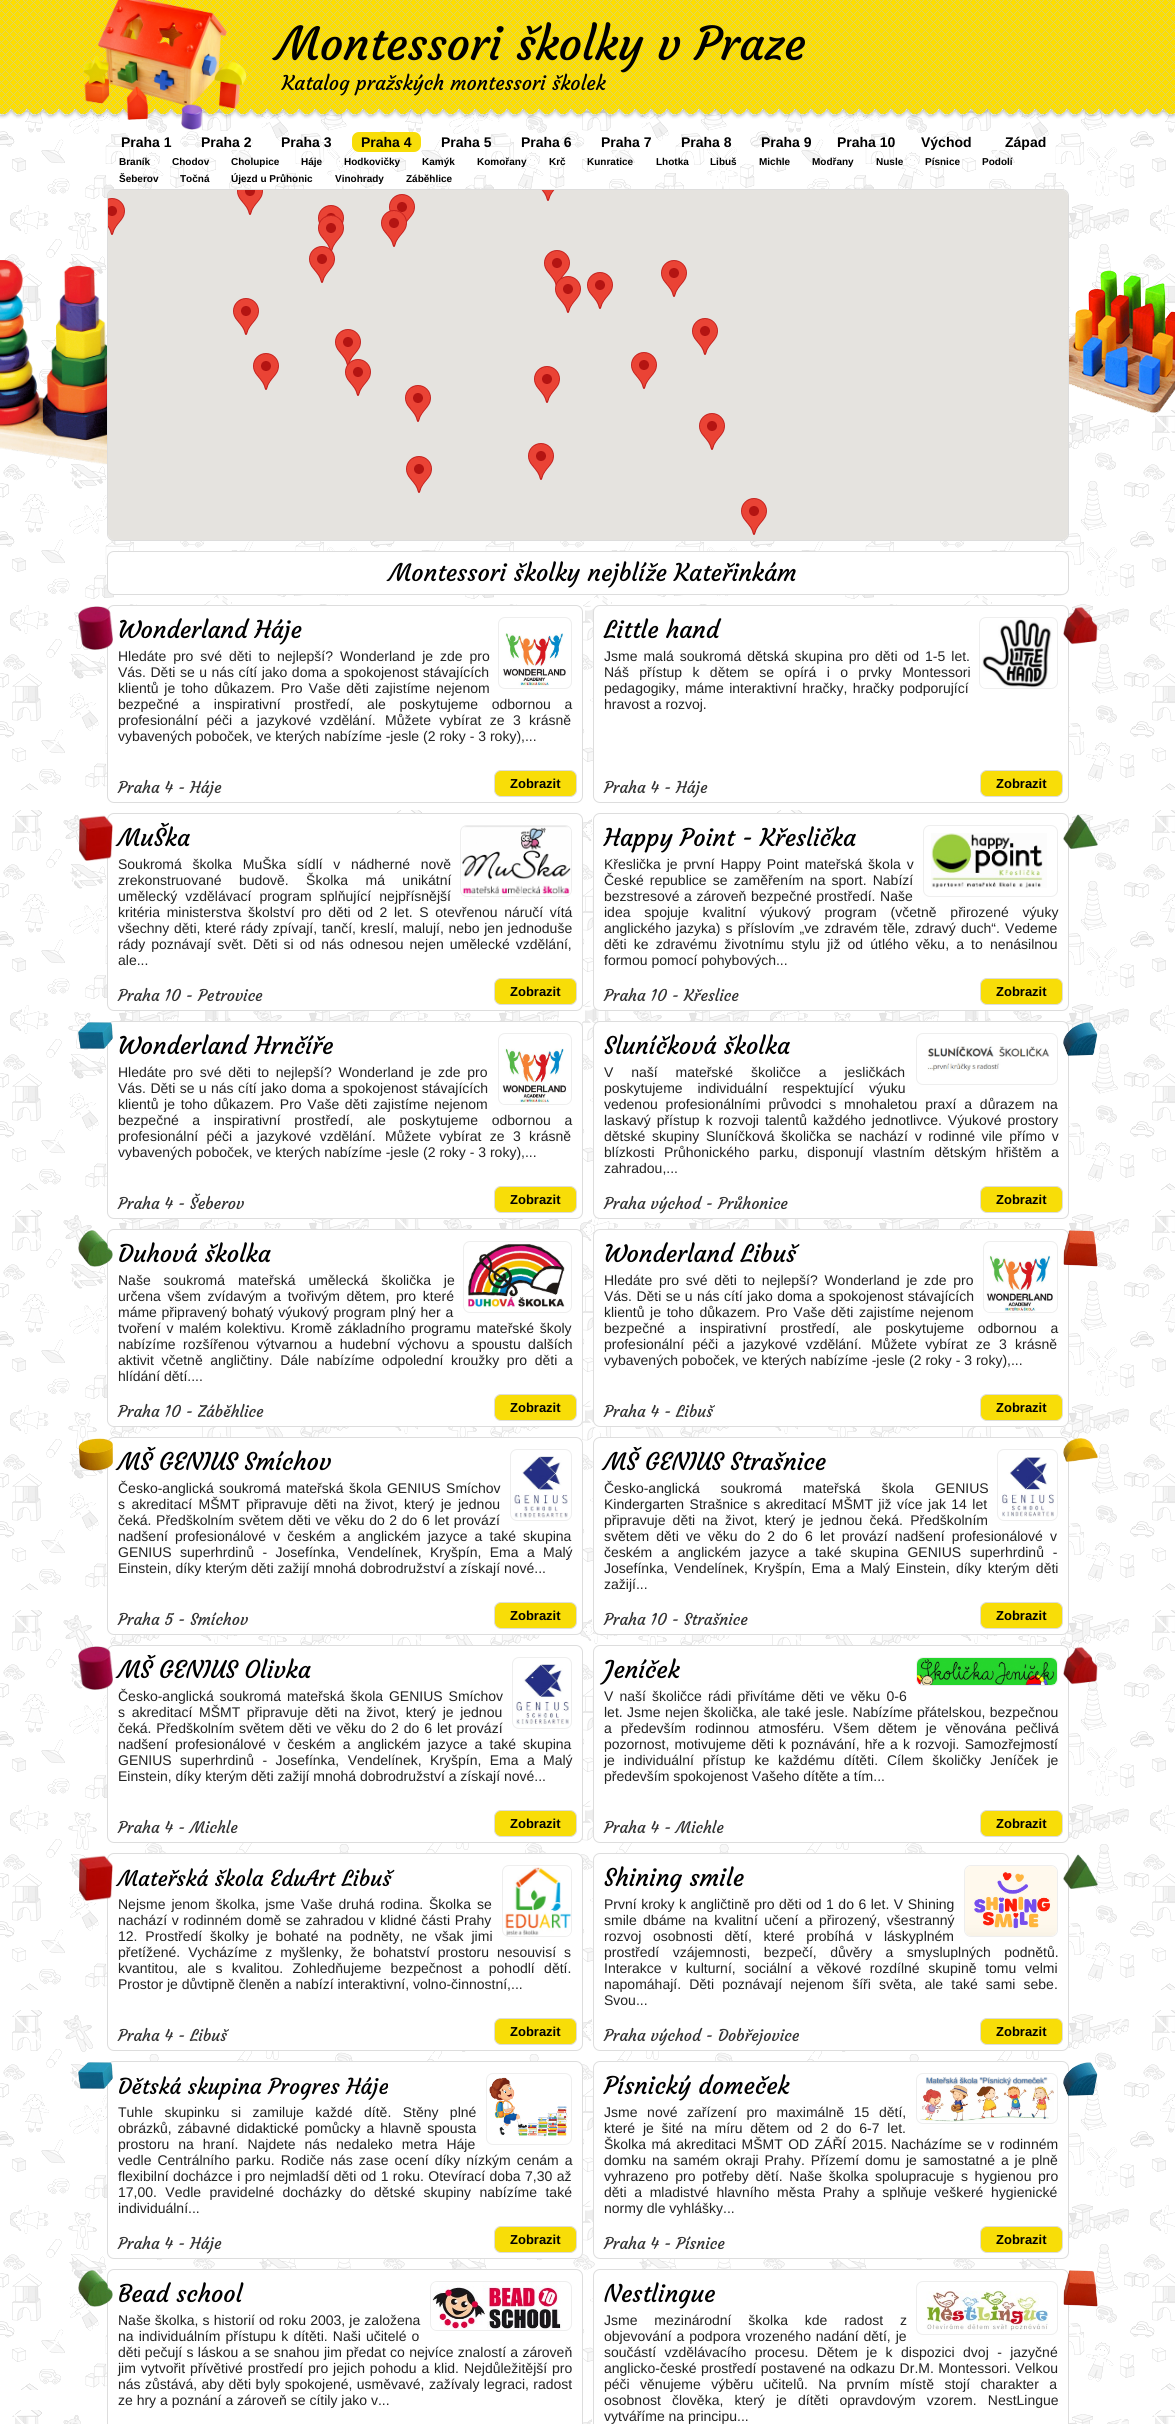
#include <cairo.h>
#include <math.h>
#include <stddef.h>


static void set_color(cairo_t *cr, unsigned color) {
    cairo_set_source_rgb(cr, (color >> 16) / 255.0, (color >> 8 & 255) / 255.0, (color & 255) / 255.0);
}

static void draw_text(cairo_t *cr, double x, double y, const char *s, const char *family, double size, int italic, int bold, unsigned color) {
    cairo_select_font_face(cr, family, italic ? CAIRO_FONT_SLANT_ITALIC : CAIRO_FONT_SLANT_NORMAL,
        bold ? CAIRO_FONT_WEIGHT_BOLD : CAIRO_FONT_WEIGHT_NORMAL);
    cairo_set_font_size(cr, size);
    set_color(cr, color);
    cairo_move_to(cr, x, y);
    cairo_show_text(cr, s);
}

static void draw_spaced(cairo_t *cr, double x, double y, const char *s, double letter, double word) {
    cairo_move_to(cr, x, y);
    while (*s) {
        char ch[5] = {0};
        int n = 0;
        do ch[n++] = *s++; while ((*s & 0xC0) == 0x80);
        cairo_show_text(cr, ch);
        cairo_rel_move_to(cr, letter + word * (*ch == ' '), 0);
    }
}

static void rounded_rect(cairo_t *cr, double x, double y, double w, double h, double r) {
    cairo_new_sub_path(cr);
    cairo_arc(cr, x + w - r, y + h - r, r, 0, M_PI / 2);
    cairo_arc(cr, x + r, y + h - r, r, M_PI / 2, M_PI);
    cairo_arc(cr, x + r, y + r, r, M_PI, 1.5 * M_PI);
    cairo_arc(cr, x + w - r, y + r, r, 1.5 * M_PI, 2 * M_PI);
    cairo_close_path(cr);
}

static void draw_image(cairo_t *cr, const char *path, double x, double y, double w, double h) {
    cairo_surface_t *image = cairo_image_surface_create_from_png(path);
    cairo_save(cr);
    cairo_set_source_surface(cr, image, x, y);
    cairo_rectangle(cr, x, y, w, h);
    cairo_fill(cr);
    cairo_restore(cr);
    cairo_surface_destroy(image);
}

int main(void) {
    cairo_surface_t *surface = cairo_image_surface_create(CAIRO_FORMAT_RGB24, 1175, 2424);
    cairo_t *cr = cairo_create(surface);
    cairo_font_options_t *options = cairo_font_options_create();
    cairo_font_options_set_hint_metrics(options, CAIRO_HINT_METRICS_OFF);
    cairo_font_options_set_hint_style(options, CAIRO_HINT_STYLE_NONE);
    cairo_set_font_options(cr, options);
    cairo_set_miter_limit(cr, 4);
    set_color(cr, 0xFFFFFF);
    cairo_paint(cr);
    draw_image(cr, "assets/img1.png", 0, 109, 1175, 2315);
    draw_image(cr, "assets/img2.png", 0, 0, 1175, 119);
    draw_image(cr, "assets/img3.png", 83, 0, 164, 130);
    draw_text(cr, 277, 60, "Montessori školky v Praze", "Courgette", 46, 0, 0, 0x000000);
    draw_text(cr, 282, 90, "Katalog pražských montessori školek", "Courgette", 20, 0, 0, 0x000000);
    draw_text(cr, 121, 147, "Praha 1", "Liberation Sans", 14, 0, 1, 0x000000);
    draw_text(cr, 201, 147, "Praha 2", "Liberation Sans", 14, 0, 1, 0x000000);
    draw_text(cr, 281, 147, "Praha 3", "Liberation Sans", 14, 0, 1, 0x000000);
    set_color(cr, 0xF8DD08);
    rounded_rect(cr, 352, 132, 69, 20, 7);
    cairo_fill(cr);
    draw_text(cr, 361, 147, "Praha 4", "Liberation Sans", 14, 0, 1, 0x000000);
    draw_text(cr, 441, 147, "Praha 5", "Liberation Sans", 14, 0, 1, 0x000000);
    draw_text(cr, 521, 147, "Praha 6", "Liberation Sans", 14, 0, 1, 0x000000);
    draw_text(cr, 601, 147, "Praha 7", "Liberation Sans", 14, 0, 1, 0x000000);
    draw_text(cr, 681, 147, "Praha 8", "Liberation Sans", 14, 0, 1, 0x000000);
    draw_text(cr, 761, 147, "Praha 9", "Liberation Sans", 14, 0, 1, 0x000000);
    draw_text(cr, 837, 147, "Praha 10", "Liberation Sans", 14, 0, 1, 0x000000);
    draw_text(cr, 921, 147, "Východ", "Liberation Sans", 14, 0, 1, 0x000000);
    draw_text(cr, 1005, 147, "Západ", "Liberation Sans", 14, 0, 1, 0x000000);
    draw_text(cr, 119, 165, "Braník", "Liberation Sans", 10, 0, 1, 0x000000);
    draw_text(cr, 172, 165, "Chodov", "Liberation Sans", 10, 0, 1, 0x000000);
    draw_text(cr, 231, 165, "Cholupice", "Liberation Sans", 10, 0, 1, 0x000000);
    draw_text(cr, 301, 165, "Háje", "Liberation Sans", 10, 0, 1, 0x000000);
    draw_text(cr, 344, 165, "Hodkovičky", "Liberation Sans", 10, 0, 1, 0x000000);
    draw_text(cr, 422, 165, "Kamýk", "Liberation Sans", 10, 0, 1, 0x000000);
    draw_text(cr, 477, 165, "Komořany", "Liberation Sans", 10, 0, 1, 0x000000);
    draw_text(cr, 549, 165, "Krč", "Liberation Sans", 10, 0, 1, 0x000000);
    draw_text(cr, 587, 165, "Kunratice", "Liberation Sans", 10, 0, 1, 0x000000);
    draw_text(cr, 656, 165, "Lhotka", "Liberation Sans", 10, 0, 1, 0x000000);
    draw_text(cr, 710, 165, "Libuš", "Liberation Sans", 10, 0, 1, 0x000000);
    draw_text(cr, 759, 165, "Michle", "Liberation Sans", 10, 0, 1, 0x000000);
    draw_text(cr, 812, 165, "Modřany", "Liberation Sans", 10, 0, 1, 0x000000);
    draw_text(cr, 876, 165, "Nusle", "Liberation Sans", 10, 0, 1, 0x000000);
    draw_text(cr, 925, 165, "Písnice", "Liberation Sans", 10, 0, 1, 0x000000);
    draw_text(cr, 982, 165, "Podolí", "Liberation Sans", 10, 0, 1, 0x000000);
    draw_text(cr, 119, 182, "Šeberov", "Liberation Sans", 10, 0, 1, 0x000000);
    draw_text(cr, 180, 182, "Točná", "Liberation Sans", 10, 0, 1, 0x000000);
    draw_text(cr, 231, 182, "Újezd u Průhonic", "Liberation Sans", 10, 0, 1, 0x000000);
    draw_text(cr, 335, 182, "Vinohrady", "Liberation Sans", 10, 0, 1, 0x000000);
    draw_text(cr, 406, 182, "Záběhlice", "Liberation Sans", 10, 0, 1, 0x000000);
    draw_image(cr, "assets/img4.png", 0, 260, 107, 205);
    rounded_rect(cr, 107.5, 189.5, 961, 351, 6.5);
    set_color(cr, 0xDDDDDD);
    cairo_set_line_width(cr, 1);
    cairo_stroke(cr);
    set_color(cr, 0xE5E3DF);
    rounded_rect(cr, 108, 190, 960, 350, 6);
    cairo_fill(cr);
    draw_image(cr, "assets/img5.png", 108, 198, 17, 37);
    draw_image(cr, "assets/img6.png", 237, 190, 26, 25);
    draw_image(cr, "assets/img7.png", 318, 205, 26, 18);
    draw_image(cr, "assets/img8.png", 389, 194, 26, 29);
    draw_image(cr, "assets/img9.png", 541, 190, 14, 11);
    draw_image(cr, "assets/img10.png", 318, 215, 26, 36);
    draw_image(cr, "assets/img11.png", 381, 210, 26, 37);
    draw_image(cr, "assets/img12.png", 309, 246, 26, 37);
    draw_image(cr, "assets/img13.png", 544, 250, 26, 36);
    draw_image(cr, "assets/img14.png", 587, 272, 26, 37);
    draw_image(cr, "assets/img14.png", 661, 260, 26, 37);
    draw_image(cr, "assets/img14.png", 233, 298, 26, 37);
    draw_image(cr, "assets/img13.png", 335, 329, 26, 36);
    draw_image(cr, "assets/img15.png", 555, 276, 26, 37);
    draw_image(cr, "assets/img14.png", 692, 318, 26, 37);
    draw_image(cr, "assets/img14.png", 253, 353, 26, 37);
    draw_image(cr, "assets/img16.png", 345, 359, 26, 37);
    draw_image(cr, "assets/img14.png", 405, 385, 26, 37);
    draw_image(cr, "assets/img14.png", 534, 366, 26, 37);
    draw_image(cr, "assets/img14.png", 631, 352, 26, 37);
    draw_image(cr, "assets/img14.png", 699, 413, 26, 37);
    draw_image(cr, "assets/img14.png", 406, 456, 26, 37);
    draw_image(cr, "assets/img14.png", 528, 443, 26, 37);
    draw_image(cr, "assets/img14.png", 741, 498, 26, 37);
    draw_image(cr, "assets/img17.png", 1069, 270, 106, 143);
    set_color(cr, 0xFFFFFF);
    rounded_rect(cr, 107.5, 551.5, 961, 43, 6.5);
    cairo_fill_preserve(cr);
    set_color(cr, 0xDDDDDD);
    cairo_stroke(cr);
    draw_text(cr, 389, 581, "Montessori školky nejblíže Kateřinkám", "Courgette", 24, 0, 0, 0x000000);
    set_color(cr, 0xFFFFFF);
    rounded_rect(cr, 107.5, 605.5, 475, 197, 6.5);
    cairo_fill_preserve(cr);
    set_color(cr, 0xDDDDDD);
    cairo_stroke(cr);
    draw_image(cr, "assets/img18.png", 78, 606, 35, 44);
    draw_text(cr, 118, 638, "Wonderland Háje", "Courgette", 24, 0, 0, 0x000000);
    rounded_rect(cr, 498.5, 617.5, 73, 71, 6.5);
    set_color(cr, 0xEEEEEE);
    cairo_stroke(cr);
    draw_image(cr, "assets/img19.png", 503, 633, 63, 54);
    cairo_select_font_face(cr, "Liberation Sans", CAIRO_FONT_SLANT_NORMAL, CAIRO_FONT_WEIGHT_NORMAL);
    cairo_set_font_size(cr, 14);
    set_color(cr, 0x222222);
    draw_spaced(cr, 118, 661, "Hledáte pro své děti to nejlepší? Wonderland je zde pro", 0, 3);
    draw_spaced(cr, 118, 677, "Vás. Děti se u nás cítí jako doma a spokojenost stávajících", 0, 0.6);
    draw_spaced(cr, 118, 693, "klientů je toho důkazem. Pro Vaše děti zajistíme nejenom", 0, 2);
    draw_spaced(cr, 118, 709, "bezpečné a inspirativní prostředí, ale poskytujeme odbornou a", 0, 9.75);
    draw_spaced(cr, 118, 725, "profesionální péči a jazykové vzdělání.", 0, 4.5);
    draw_spaced(cr, 385, 725, "Můžete vybírat ze 3 krásně", 0, 4.5);
    draw_text(cr, 118, 741, "vybavených poboček, ve kterých nabízíme -jesle (2 roky - 3 roky),...", "Liberation Sans", 14, 0, 0, 0x222222);
    draw_text(cr, 118, 793, "Praha 4 - Háje", "Courgette", 16, 0, 0, 0x333333);
    set_color(cr, 0xF8DD08);
    rounded_rect(cr, 494.5, 770.5, 82, 26, 6.5);
    cairo_fill_preserve(cr);
    set_color(cr, 0xDDDDDD);
    cairo_stroke(cr);
    draw_text(cr, 510, 788, "Zobrazit", "Liberation Sans", 13, 0, 1, 0x000000);
    set_color(cr, 0xFFFFFF);
    rounded_rect(cr, 593.5, 605.5, 475, 197, 6.5);
    cairo_fill_preserve(cr);
    set_color(cr, 0xDDDDDD);
    cairo_stroke(cr);
    draw_text(cr, 604, 638, "Little hand", "Courgette", 24, 0, 0, 0x000000);
    rounded_rect(cr, 979.5, 617.5, 78, 71, 6.5);
    set_color(cr, 0xEEEEEE);
    cairo_stroke(cr);
    draw_image(cr, "assets/img20.png", 982, 619, 70, 69);
    draw_image(cr, "assets/img21.png", 1063, 607, 35, 38);
    cairo_select_font_face(cr, "Liberation Sans", CAIRO_FONT_SLANT_NORMAL, CAIRO_FONT_WEIGHT_NORMAL);
    cairo_set_font_size(cr, 14);
    set_color(cr, 0x222222);
    draw_spaced(cr, 604, 661, "Jsme malá soukromá dětská skupina pro děti od 1-5 let.", 0, 2.1);
    draw_spaced(cr, 604, 677, "Náš přístup k dětem se opírá i o prvky Montessori", 0, 6.5);
    draw_spaced(cr, 604, 693, "pedagogiky, máme interaktivní hračky, hračky podporující", 0, 1.5);
    draw_text(cr, 604, 709, "hravost a rozvoj.", "Liberation Sans", 14, 0, 0, 0x222222);
    draw_text(cr, 604, 793, "Praha 4 - Háje", "Courgette", 16, 0, 0, 0x333333);
    set_color(cr, 0xF8DD08);
    rounded_rect(cr, 980.5, 770.5, 82, 26, 6.5);
    cairo_fill_preserve(cr);
    set_color(cr, 0xDDDDDD);
    cairo_stroke(cr);
    draw_text(cr, 996, 788, "Zobrazit", "Liberation Sans", 13, 0, 1, 0x000000);
    set_color(cr, 0xFFFFFF);
    rounded_rect(cr, 107.5, 813.5, 475, 197, 6.5);
    cairo_fill_preserve(cr);
    set_color(cr, 0xDDDDDD);
    cairo_stroke(cr);
    draw_image(cr, "assets/img22.png", 79, 815, 34, 46);
    draw_text(cr, 118, 846, "MuŠka", "Courgette", 24, 0, 0, 0x000000);
    rounded_rect(cr, 460.5, 825.5, 111, 71, 6.5);
    set_color(cr, 0xEEEEEE);
    cairo_stroke(cr);
    draw_image(cr, "assets/img23.png", 462, 826, 109, 69);
    cairo_select_font_face(cr, "Liberation Sans", CAIRO_FONT_SLANT_NORMAL, CAIRO_FONT_WEIGHT_NORMAL);
    cairo_set_font_size(cr, 14);
    set_color(cr, 0x222222);
    draw_spaced(cr, 118, 869, "Soukromá školka MuŠka sídlí v nádherné nově", 0, 6.75);
    draw_spaced(cr, 118, 885, "zrekonstruované budově. Školka má unikátní", 0, 13.5);
    draw_spaced(cr, 118, 901, "umělecký vzdělávací program splňující nejpřísnější", 0, 4.25);
    draw_spaced(cr, 118, 917, "kritéria ministerstva školství pro děti od 2 let. S otevřenou náručí vítá", 0, 2.75);
    draw_spaced(cr, 118, 933, "všechny děti, které rády zpívají, tančí, kreslí, malují, nebo jen jednoduše", 0, 0.75);
    draw_spaced(cr, 118, 949, "rády poznávají svět. Děti si od nás odnesou nejen umělecké vzdělání,", 0, 2.1);
    draw_text(cr, 118, 965, "ale...", "Liberation Sans", 14, 0, 0, 0x222222);
    draw_text(cr, 118, 1001, "Praha 10 - Petrovice", "Courgette", 16, 0, 0, 0x333333);
    set_color(cr, 0xF8DD08);
    rounded_rect(cr, 494.5, 978.5, 82, 26, 6.5);
    cairo_fill_preserve(cr);
    set_color(cr, 0xDDDDDD);
    cairo_stroke(cr);
    draw_text(cr, 510, 996, "Zobrazit", "Liberation Sans", 13, 0, 1, 0x000000);
    set_color(cr, 0xFFFFFF);
    rounded_rect(cr, 593.5, 813.5, 475, 197, 6.5);
    cairo_fill_preserve(cr);
    set_color(cr, 0xDDDDDD);
    cairo_stroke(cr);
    draw_text(cr, 604, 846, "Happy Point - Křeslička", "Courgette", 24, 0, 0, 0x000000);
    rounded_rect(cr, 923.5, 825.5, 134, 71, 6.5);
    set_color(cr, 0xEEEEEE);
    cairo_stroke(cr);
    draw_image(cr, "assets/img24.png", 931, 833, 116, 55);
    draw_image(cr, "assets/img25.png", 1063, 814, 35, 35);
    cairo_select_font_face(cr, "Liberation Sans", CAIRO_FONT_SLANT_NORMAL, CAIRO_FONT_WEIGHT_NORMAL);
    cairo_set_font_size(cr, 14);
    set_color(cr, 0x222222);
    draw_spaced(cr, 604, 869, "Křeslička je první Happy Point mateřská škola v", 0, 2);
    draw_spaced(cr, 604, 885, "České republice se zaměřením na sport. Nabízí", 0, 2.25);
    draw_spaced(cr, 604, 901, "bezstresové a zároveň bezpečné prostředí. Naše", 0, 0.75);
    draw_spaced(cr, 604, 917, "idea spojuje kvalitní výukový program (včetně přirozené výuky", 0, 10);
    draw_spaced(cr, 604, 933, "anglického jazyka) s příslovím „ve zdravém těle, zdravý duch“. Vedeme", 0, 1.25);
    draw_spaced(cr, 604, 949, "děti ke zdravému životnímu stylu již od útlého věku, a to nenásilnou", 0, 3.25);
    draw_text(cr, 604, 965, "formou pomocí pohybových...", "Liberation Sans", 14, 0, 0, 0x222222);
    draw_text(cr, 604, 1001, "Praha 10 - Křeslice", "Courgette", 16, 0, 0, 0x333333);
    set_color(cr, 0xF8DD08);
    rounded_rect(cr, 980.5, 978.5, 82, 26, 6.5);
    cairo_fill_preserve(cr);
    set_color(cr, 0xDDDDDD);
    cairo_stroke(cr);
    draw_text(cr, 996, 996, "Zobrazit", "Liberation Sans", 13, 0, 1, 0x000000);
    set_color(cr, 0xFFFFFF);
    rounded_rect(cr, 107.5, 1021.5, 475, 197, 6.5);
    cairo_fill_preserve(cr);
    set_color(cr, 0xDDDDDD);
    cairo_stroke(cr);
    draw_image(cr, "assets/img26.png", 78, 1022, 35, 27);
    draw_text(cr, 118, 1054, "Wonderland Hrnčíře", "Courgette", 24, 0, 0, 0x000000);
    rounded_rect(cr, 498.5, 1033.5, 73, 71, 6.5);
    set_color(cr, 0xEEEEEE);
    cairo_stroke(cr);
    draw_image(cr, "assets/img27.png", 502, 1048, 65, 56);
    cairo_select_font_face(cr, "Liberation Sans", CAIRO_FONT_SLANT_NORMAL, CAIRO_FONT_WEIGHT_NORMAL);
    cairo_set_font_size(cr, 14);
    set_color(cr, 0x222222);
    draw_spaced(cr, 118, 1077, "Hledáte pro své děti to nejlepší? Wonderland je zde pro", 0, 2.75);
    draw_spaced(cr, 118, 1093, "Vás. Děti se u nás cítí jako doma a spokojenost stávajících", 0, 0.5);
    draw_spaced(cr, 118, 1109, "klientů je toho důkazem. Pro Vaše děti zajistíme nejenom", 0, 1.75);
    draw_spaced(cr, 118, 1125, "bezpečné a inspirativní prostředí, ale poskytujeme odbornou a", 0, 9.75);
    draw_spaced(cr, 118, 1141, "profesionální péči a jazykové vzdělání.", 0, 4.5);
    draw_spaced(cr, 385, 1141, "Můžete vybírat ze 3 krásně", 0, 4.5);
    draw_text(cr, 118, 1157, "vybavených poboček, ve kterých nabízíme -jesle (2 roky - 3 roky),...", "Liberation Sans", 14, 0, 0, 0x222222);
    draw_text(cr, 118, 1209, "Praha 4 - Šeberov", "Courgette", 16, 0, 0, 0x333333);
    set_color(cr, 0xF8DD08);
    rounded_rect(cr, 494.5, 1186.5, 82, 26, 6.5);
    cairo_fill_preserve(cr);
    set_color(cr, 0xDDDDDD);
    cairo_stroke(cr);
    draw_text(cr, 510, 1204, "Zobrazit", "Liberation Sans", 13, 0, 1, 0x000000);
    set_color(cr, 0xFFFFFF);
    rounded_rect(cr, 593.5, 1021.5, 475, 197, 6.5);
    cairo_fill_preserve(cr);
    set_color(cr, 0xDDDDDD);
    cairo_stroke(cr);
    draw_text(cr, 604, 1054, "Sluníčková školka", "Courgette", 24, 0, 0, 0x000000);
    rounded_rect(cr, 916.5, 1033.5, 141, 51, 6.5);
    set_color(cr, 0xEEEEEE);
    cairo_stroke(cr);
    draw_image(cr, "assets/img28.png", 927, 1046, 123, 25);
    draw_image(cr, "assets/img29.png", 1063, 1022, 35, 34);
    cairo_select_font_face(cr, "Liberation Sans", CAIRO_FONT_SLANT_NORMAL, CAIRO_FONT_WEIGHT_NORMAL);
    cairo_set_font_size(cr, 14);
    set_color(cr, 0x222222);
    draw_spaced(cr, 604, 1077, "V naší mateřské školičce a jesličkách", 0, 14);
    draw_spaced(cr, 604, 1093, "poskytujeme individuální respektující výuku", 0, 11);
    draw_spaced(cr, 604, 1109, "vedenou profesionálními průvodci s mnohaletou praxí a důrazem na", 0, 4);
    draw_spaced(cr, 604, 1125, "laskavý přístup k rozvoji talentů každého jednotlivce. Výukové prostory", 0, 2.1);
    draw_spaced(cr, 604, 1141, "dětské skupiny Sluníčková školička se nachází v rodinné vile přímo v", 0, 2.75);
    draw_spaced(cr, 604, 1157, "blízkosti Průhonického parku, disponují vlastním dětským hřištěm a", 0, 5.5);
    draw_text(cr, 604, 1173, "zahradou,...", "Liberation Sans", 14, 0, 0, 0x222222);
    draw_text(cr, 604, 1209, "Praha východ - Průhonice", "Courgette", 16, 0, 0, 0x333333);
    set_color(cr, 0xF8DD08);
    rounded_rect(cr, 980.5, 1186.5, 82, 26, 6.5);
    cairo_fill_preserve(cr);
    set_color(cr, 0xDDDDDD);
    cairo_stroke(cr);
    draw_text(cr, 996, 1204, "Zobrazit", "Liberation Sans", 13, 0, 1, 0x000000);
    set_color(cr, 0xFFFFFF);
    rounded_rect(cr, 107.5, 1229.5, 475, 197, 6.5);
    cairo_fill_preserve(cr);
    set_color(cr, 0xDDDDDD);
    cairo_stroke(cr);
    draw_image(cr, "assets/img30.png", 78, 1230, 35, 37);
    draw_text(cr, 118, 1262, "Duhová školka", "Courgette", 24, 0, 0, 0x000000);
    rounded_rect(cr, 463.5, 1241.5, 108, 71, 6.5);
    set_color(cr, 0xEEEEEE);
    cairo_stroke(cr);
    draw_image(cr, "assets/img31.png", 468, 1244, 97, 64);
    cairo_select_font_face(cr, "Liberation Sans", CAIRO_FONT_SLANT_NORMAL, CAIRO_FONT_WEIGHT_NORMAL);
    cairo_set_font_size(cr, 14);
    set_color(cr, 0x222222);
    draw_spaced(cr, 118, 1285, "Naše soukromá mateřská umělecká školička je", 0, 9);
    draw_spaced(cr, 118, 1301, "určena všem zvídavým a tvořivým dětem, pro které", 0, 2.75);
    draw_spaced(cr, 118, 1317, "máme připravený bohatý výukový program plný her a", 0, 0.75);
    draw_spaced(cr, 118, 1333, "tvoření v malém kolektivu. Kromě základního programu mateřské školy", 0, 1.75);
    draw_spaced(cr, 118, 1349, "nabízíme rozšířenou výtvarnou a hudební výchovu a spoustu dalších", 0, 3.5);
    draw_spaced(cr, 118, 1365, "aktivit včetně angličtiny. Dále nabízíme odpolední kroužky pro děti a", 0, 3.75);
    draw_text(cr, 118, 1381, "hlídání dětí....", "Liberation Sans", 14, 0, 0, 0x222222);
    draw_text(cr, 118, 1417, "Praha 10 - Záběhlice", "Courgette", 16, 0, 0, 0x333333);
    set_color(cr, 0xF8DD08);
    rounded_rect(cr, 494.5, 1394.5, 82, 26, 6.5);
    cairo_fill_preserve(cr);
    set_color(cr, 0xDDDDDD);
    cairo_stroke(cr);
    draw_text(cr, 510, 1412, "Zobrazit", "Liberation Sans", 13, 0, 1, 0x000000);
    set_color(cr, 0xFFFFFF);
    rounded_rect(cr, 593.5, 1229.5, 475, 197, 6.5);
    cairo_fill_preserve(cr);
    set_color(cr, 0xDDDDDD);
    cairo_stroke(cr);
    draw_text(cr, 604, 1262, "Wonderland Libuš", "Courgette", 24, 0, 0, 0x000000);
    rounded_rect(cr, 983.5, 1241.5, 74, 71, 6.5);
    set_color(cr, 0xEEEEEE);
    cairo_stroke(cr);
    draw_image(cr, "assets/img32.png", 986, 1255, 67, 57);
    draw_image(cr, "assets/img33.png", 1063, 1230, 35, 37);
    cairo_select_font_face(cr, "Liberation Sans", CAIRO_FONT_SLANT_NORMAL, CAIRO_FONT_WEIGHT_NORMAL);
    cairo_set_font_size(cr, 14);
    set_color(cr, 0x222222);
    draw_spaced(cr, 604, 1285, "Hledáte pro své děti to nejlepší? Wonderland je zde pro", 0, 2.75);
    draw_spaced(cr, 604, 1301, "Vás. Děti se u nás cítí jako doma a spokojenost stávajících", 0, 0.5);
    draw_spaced(cr, 604, 1317, "klientů je toho důkazem. Pro Vaše děti zajistíme nejenom", 0, 1.75);
    draw_spaced(cr, 604, 1333, "bezpečné a inspirativní prostředí, ale poskytujeme odbornou a", 0, 9.75);
    draw_spaced(cr, 604, 1349, "profesionální péči a jazykové vzdělání.", 0, 4.5);
    draw_spaced(cr, 871, 1349, "Můžete vybírat ze 3 krásně", 0, 4.5);
    draw_text(cr, 604, 1365, "vybavených poboček, ve kterých nabízíme -jesle (2 roky - 3 roky),...", "Liberation Sans", 14, 0, 0, 0x222222);
    draw_text(cr, 604, 1417, "Praha 4 - Libuš", "Courgette", 16, 0, 0, 0x333333);
    set_color(cr, 0xF8DD08);
    rounded_rect(cr, 980.5, 1394.5, 82, 26, 6.5);
    cairo_fill_preserve(cr);
    set_color(cr, 0xDDDDDD);
    cairo_stroke(cr);
    draw_text(cr, 996, 1412, "Zobrazit", "Liberation Sans", 13, 0, 1, 0x000000);
    set_color(cr, 0xFFFFFF);
    rounded_rect(cr, 107.5, 1437.5, 475, 197, 6.5);
    cairo_fill_preserve(cr);
    set_color(cr, 0xDDDDDD);
    cairo_stroke(cr);
    draw_image(cr, "assets/img34.png", 78, 1438, 35, 33);
    draw_text(cr, 118, 1470, "MŠ GENIUS Smíchov", "Courgette", 24, 0, 0, 0x000000);
    rounded_rect(cr, 510.5, 1449.5, 61, 71, 6.5);
    set_color(cr, 0xEEEEEE);
    cairo_stroke(cr);
    draw_image(cr, "assets/img35.png", 514, 1456, 54, 62);
    cairo_select_font_face(cr, "Liberation Sans", CAIRO_FONT_SLANT_NORMAL, CAIRO_FONT_WEIGHT_NORMAL);
    cairo_set_font_size(cr, 14);
    set_color(cr, 0x222222);
    draw_spaced(cr, 118, 1493, "Česko-anglická soukromá mateřská škola GENIUS Smíchov", 0, 1.5);
    draw_spaced(cr, 118, 1509, "s akreditací MŠMT připravuje děti na život, který je jednou", 0, 2.5);
    draw_spaced(cr, 118, 1525, "čeká. Předškolním světem děti ve věku do 2 do 6 let provází", 0, 0.75);
    draw_spaced(cr, 118, 1541, "nadšení profesionálové v českém a anglickém jazyce a také skupina", 0, 3.25);
    draw_spaced(cr, 118, 1557, "GENIUS superhrdinů - Josefínka, Vendelínek, Kryšpín, Ema a Malý", 0, 4.5);
    draw_text(cr, 118, 1573, "Einstein, díky kterým děti zažijí mnohá dobrodružství a získají nové...", "Liberation Sans", 14, 0, 0, 0x222222);
    draw_text(cr, 118, 1625, "Praha 5 - Smíchov", "Courgette", 16, 0, 0, 0x333333);
    set_color(cr, 0xF8DD08);
    rounded_rect(cr, 494.5, 1602.5, 82, 26, 6.5);
    cairo_fill_preserve(cr);
    set_color(cr, 0xDDDDDD);
    cairo_stroke(cr);
    draw_text(cr, 510, 1620, "Zobrazit", "Liberation Sans", 13, 0, 1, 0x000000);
    set_color(cr, 0xFFFFFF);
    rounded_rect(cr, 593.5, 1437.5, 475, 197, 6.5);
    cairo_fill_preserve(cr);
    set_color(cr, 0xDDDDDD);
    cairo_stroke(cr);
    draw_text(cr, 604, 1470, "MŠ GENIUS Strašnice", "Courgette", 24, 0, 0, 0x000000);
    rounded_rect(cr, 997.5, 1449.5, 60, 71, 6.5);
    set_color(cr, 0xEEEEEE);
    cairo_stroke(cr);
    draw_image(cr, "assets/img36.png", 1002, 1457, 52, 60);
    draw_image(cr, "assets/img37.png", 1063, 1438, 35, 24);
    cairo_select_font_face(cr, "Liberation Sans", CAIRO_FONT_SLANT_NORMAL, CAIRO_FONT_WEIGHT_NORMAL);
    cairo_set_font_size(cr, 14);
    set_color(cr, 0x222222);
    draw_spaced(cr, 604, 1493, "Česko-anglická soukromá mateřská škola GENIUS", 0, 17);
    draw_spaced(cr, 604, 1509, "Kindergarten Strašnice s akreditací MŠMT již více jak 14 let", 0, 1.5);
    draw_spaced(cr, 604, 1525, "připravuje děti na život, který je jednou čeká. Předškolním", 0, 3.25);
    draw_spaced(cr, 604, 1541, "světem děti ve věku do 2 do 6 let provází nadšení profesionálové v", 0, 3.25);
    draw_spaced(cr, 604, 1557, "českém a anglickém jazyce a také skupina GENIUS superhrdinů -", 0, 5);
    draw_spaced(cr, 604, 1573, "Josefínka, Vendelínek, Kryšpín, Ema a Malý Einstein, díky kterým děti", 0, 2.25);
    draw_text(cr, 604, 1589, "zažijí...", "Liberation Sans", 14, 0, 0, 0x222222);
    draw_text(cr, 604, 1625, "Praha 10 - Strašnice", "Courgette", 16, 0, 0, 0x333333);
    set_color(cr, 0xF8DD08);
    rounded_rect(cr, 980.5, 1602.5, 82, 26, 6.5);
    cairo_fill_preserve(cr);
    set_color(cr, 0xDDDDDD);
    cairo_stroke(cr);
    draw_text(cr, 996, 1620, "Zobrazit", "Liberation Sans", 13, 0, 1, 0x000000);
    set_color(cr, 0xFFFFFF);
    rounded_rect(cr, 107.5, 1645.5, 475, 197, 6.5);
    cairo_fill_preserve(cr);
    set_color(cr, 0xDDDDDD);
    cairo_stroke(cr);
    draw_image(cr, "assets/img38.png", 78, 1646, 35, 44);
    draw_text(cr, 118, 1678, "MŠ GENIUS Olivka", "Courgette", 24, 0, 0, 0x000000);
    rounded_rect(cr, 512.5, 1657.5, 59, 71, 6.5);
    set_color(cr, 0xEEEEEE);
    cairo_stroke(cr);
    draw_image(cr, "assets/img39.png", 516, 1664, 53, 61);
    cairo_select_font_face(cr, "Liberation Sans", CAIRO_FONT_SLANT_NORMAL, CAIRO_FONT_WEIGHT_NORMAL);
    cairo_set_font_size(cr, 14);
    set_color(cr, 0x222222);
    draw_spaced(cr, 118, 1701, "Česko-anglická soukromá mateřská škola GENIUS Smíchov", 0, 2);
    draw_spaced(cr, 118, 1717, "s akreditací MŠMT připravuje děti na život, který je jednou", 0, 2.75);
    draw_spaced(cr, 118, 1733, "čeká. Předškolním světem děti ve věku do 2 do 6 let provází", 0, 1);
    draw_spaced(cr, 118, 1749, "nadšení profesionálové v českém a anglickém jazyce a také skupina", 0, 3.25);
    draw_spaced(cr, 118, 1765, "GENIUS superhrdinů - Josefínka, Vendelínek, Kryšpín, Ema a Malý", 0, 4.5);
    draw_text(cr, 118, 1781, "Einstein, díky kterým děti zažijí mnohá dobrodružství a získají nové...", "Liberation Sans", 14, 0, 0, 0x222222);
    draw_text(cr, 118, 1833, "Praha 4 - Michle", "Courgette", 16, 0, 0, 0x333333);
    set_color(cr, 0xF8DD08);
    rounded_rect(cr, 494.5, 1810.5, 82, 26, 6.5);
    cairo_fill_preserve(cr);
    set_color(cr, 0xDDDDDD);
    cairo_stroke(cr);
    draw_text(cr, 510, 1828, "Zobrazit", "Liberation Sans", 13, 0, 1, 0x000000);
    set_color(cr, 0xFFFFFF);
    rounded_rect(cr, 593.5, 1645.5, 475, 197, 6.5);
    cairo_fill_preserve(cr);
    set_color(cr, 0xDDDDDD);
    cairo_stroke(cr);
    draw_text(cr, 604, 1678, "Jeníček", "Courgette", 24, 0, 0, 0x000000);
    rounded_rect(cr, 916.5, 1657.5, 141, 28, 6.5);
    set_color(cr, 0xEEEEEE);
    cairo_stroke(cr);
    draw_image(cr, "assets/img40.png", 917, 1658, 140, 27);
    draw_image(cr, "assets/img41.png", 1063, 1647, 35, 38);
    cairo_select_font_face(cr, "Liberation Sans", CAIRO_FONT_SLANT_NORMAL, CAIRO_FONT_WEIGHT_NORMAL);
    cairo_set_font_size(cr, 14);
    set_color(cr, 0x222222);
    draw_spaced(cr, 604, 1701, "V naší školičce rádi přivítáme děti ve věku 0-6", 0, 2.25);
    draw_spaced(cr, 604, 1717, "let. Jsme nejen školička, ale také jesle. Nabízíme přátelskou, bezpečnou", 0, 0.5);
    draw_spaced(cr, 604, 1733, "a především rodinnou atmosféru. Všem dětem je věnována pečlivá", 0, 5);
    draw_spaced(cr, 604, 1749, "pozornost, motivujeme děti k poznávání, hře a k rozvoji. Samozřejmostí", 0, 1.25);
    draw_spaced(cr, 604, 1765, "je individuální přístup ke každému dítěti. Cílem školičky Jeníček je", 0, 5);
    draw_text(cr, 604, 1781, "především spokojenost Vašeho dítěte a tím...", "Liberation Sans", 14, 0, 0, 0x222222);
    draw_text(cr, 604, 1833, "Praha 4 - Michle", "Courgette", 16, 0, 0, 0x333333);
    set_color(cr, 0xF8DD08);
    rounded_rect(cr, 980.5, 1810.5, 82, 26, 6.5);
    cairo_fill_preserve(cr);
    set_color(cr, 0xDDDDDD);
    cairo_stroke(cr);
    draw_text(cr, 996, 1828, "Zobrazit", "Liberation Sans", 13, 0, 1, 0x000000);
    set_color(cr, 0xFFFFFF);
    rounded_rect(cr, 107.5, 1853.5, 475, 197, 6.5);
    cairo_fill_preserve(cr);
    set_color(cr, 0xDDDDDD);
    cairo_stroke(cr);
    draw_image(cr, "assets/img42.png", 79, 1855, 34, 46);
    draw_text(cr, 118, 1886, "Mateřská škola EduArt Libuš", "Courgette", 21.6, 0, 0, 0x000000);
    rounded_rect(cr, 502.5, 1865.5, 69, 71, 6.5);
    set_color(cr, 0xEEEEEE);
    cairo_stroke(cr);
    draw_image(cr, "assets/img43.png", 505, 1867, 66, 69);
    cairo_select_font_face(cr, "Liberation Sans", CAIRO_FONT_SLANT_NORMAL, CAIRO_FONT_WEIGHT_NORMAL);
    cairo_set_font_size(cr, 14);
    set_color(cr, 0x222222);
    draw_spaced(cr, 118, 1909, "Nejsme jenom školka, jsme Vaše druhá rodina.", 0, 2.1);
    draw_spaced(cr, 429, 1909, "Školka se", 0, 2.1);
    draw_spaced(cr, 118, 1925, "nachází v rodinném domě se zahradou v klidné části Prahy", 0, 0.75);
    draw_spaced(cr, 118, 1941, "12. Prostředí školky je bohaté na podněty, ne však jimi", 0, 4);
    draw_spaced(cr, 118, 1957, "přetížené. Vycházíme z myšlenky, že bohatství prostoru nesouvisí s", 0, 4);
    draw_spaced(cr, 118, 1973, "kvantitou, ale s kvalitou. Zohledňujeme bezpečnost a pohodlí dětí.", 0, 5.5);
    draw_text(cr, 118, 1989, "Prostor je důvtipně členěn a nabízí interaktivní, volno-činnostní,...", "Liberation Sans", 14, 0, 0, 0x222222);
    draw_text(cr, 118, 2041, "Praha 4 - Libuš", "Courgette", 16, 0, 0, 0x333333);
    set_color(cr, 0xF8DD08);
    rounded_rect(cr, 494.5, 2018.5, 82, 26, 6.5);
    cairo_fill_preserve(cr);
    set_color(cr, 0xDDDDDD);
    cairo_stroke(cr);
    draw_text(cr, 510, 2036, "Zobrazit", "Liberation Sans", 13, 0, 1, 0x000000);
    set_color(cr, 0xFFFFFF);
    rounded_rect(cr, 593.5, 1853.5, 475, 197, 6.5);
    cairo_fill_preserve(cr);
    set_color(cr, 0xDDDDDD);
    cairo_stroke(cr);
    draw_text(cr, 604, 1886, "Shining smile", "Courgette", 24, 0, 0, 0x000000);
    rounded_rect(cr, 964.5, 1865.5, 93, 71, 6.5);
    set_color(cr, 0xEEEEEE);
    cairo_stroke(cr);
    draw_image(cr, "assets/img44.png", 965, 1866, 92, 70);
    draw_image(cr, "assets/img45.png", 1063, 1854, 35, 35);
    cairo_select_font_face(cr, "Liberation Sans", CAIRO_FONT_SLANT_NORMAL, CAIRO_FONT_WEIGHT_NORMAL);
    cairo_set_font_size(cr, 14);
    set_color(cr, 0x222222);
    draw_spaced(cr, 604, 1909, "První kroky k angličtině pro děti od 1 do 6 let. V Shining", 0, 0.6);
    draw_spaced(cr, 604, 1925, "smile dbáme na kvalitní učení a přirozený, všestranný", 0, 2.5);
    draw_spaced(cr, 604, 1941, "rozvoj osobnosti dětí, které probíhá v láskyplném", 0, 7.75);
    draw_spaced(cr, 604, 1957, "prostředí vzájemnosti, bezpečí, důvěry a smysluplných podnětů.", 0, 9.5);
    draw_spaced(cr, 604, 1973, "Interakce v kulturní, sociální a věkové rozdílné skupině tomu velmi", 0, 4.75);
    draw_spaced(cr, 604, 1989, "napomáhají. Děti poznávají nejenom šíři světa, ale také sami sebe.", 0, 4.25);
    draw_text(cr, 604, 2005, "Svou...", "Liberation Sans", 14, 0, 0, 0x222222);
    draw_text(cr, 604, 2041, "Praha východ - Dobřejovice", "Courgette", 16, 0, 0, 0x333333);
    set_color(cr, 0xF8DD08);
    rounded_rect(cr, 980.5, 2018.5, 82, 26, 6.5);
    cairo_fill_preserve(cr);
    set_color(cr, 0xDDDDDD);
    cairo_stroke(cr);
    draw_text(cr, 996, 2036, "Zobrazit", "Liberation Sans", 13, 0, 1, 0x000000);
    set_color(cr, 0xFFFFFF);
    rounded_rect(cr, 107.5, 2061.5, 475, 197, 6.5);
    cairo_fill_preserve(cr);
    set_color(cr, 0xDDDDDD);
    cairo_stroke(cr);
    draw_image(cr, "assets/img46.png", 78, 2062, 35, 27);
    draw_text(cr, 118, 2094, "Dětská skupina Progres Háje", "Courgette", 21.6, 0, 0, 0x000000);
    rounded_rect(cr, 486.5, 2073.5, 85, 71, 6.5);
    set_color(cr, 0xEEEEEE);
    cairo_stroke(cr);
    draw_image(cr, "assets/img47.png", 489, 2077, 79, 60);
    cairo_select_font_face(cr, "Liberation Sans", CAIRO_FONT_SLANT_NORMAL, CAIRO_FONT_WEIGHT_NORMAL);
    cairo_set_font_size(cr, 14);
    set_color(cr, 0x222222);
    draw_spaced(cr, 118, 2117, "Tuhle skupinku si zamiluje každé dítě. Stěny plné", 0, 7.5);
    draw_spaced(cr, 118, 2133, "obrázků, zábavné didaktické pomůcky a hlavně spousta", 0, 2);
    draw_spaced(cr, 118, 2149, "prostoru na hraní. Najdete nás nedaleko metra Háje", 0, 5);
    draw_spaced(cr, 118, 2165, "vedle Centrálního parku. Rodiče nás zase ocení díky nízkým cenám a", 0, 2.1);
    draw_spaced(cr, 118, 2181, "flexibilní docházce i pro nejmladší děti od 1 roku. Otevírací doba 7,30 až", 0, 0.5);
    draw_spaced(cr, 118, 2197, "17,00. Vedle pravidelné docházky do dětské skupiny nabízíme také", 0, 4.5);
    draw_text(cr, 118, 2213, "individuální...", "Liberation Sans", 14, 0, 0, 0x222222);
    draw_text(cr, 118, 2249, "Praha 4 - Háje", "Courgette", 16, 0, 0, 0x333333);
    set_color(cr, 0xF8DD08);
    rounded_rect(cr, 494.5, 2226.5, 82, 26, 6.5);
    cairo_fill_preserve(cr);
    set_color(cr, 0xDDDDDD);
    cairo_stroke(cr);
    draw_text(cr, 510, 2244, "Zobrazit", "Liberation Sans", 13, 0, 1, 0x000000);
    set_color(cr, 0xFFFFFF);
    rounded_rect(cr, 593.5, 2061.5, 475, 197, 6.5);
    cairo_fill_preserve(cr);
    set_color(cr, 0xDDDDDD);
    cairo_stroke(cr);
    draw_text(cr, 604, 2094, "Písnický domeček", "Courgette", 24, 0, 0, 0x000000);
    rounded_rect(cr, 916.5, 2073.5, 141, 50, 6.5);
    set_color(cr, 0xEEEEEE);
    cairo_stroke(cr);
    draw_image(cr, "assets/img48.png", 920, 2077, 134, 45);
    draw_image(cr, "assets/img49.png", 1063, 2062, 35, 34);
    cairo_select_font_face(cr, "Liberation Sans", CAIRO_FONT_SLANT_NORMAL, CAIRO_FONT_WEIGHT_NORMAL);
    cairo_set_font_size(cr, 14);
    set_color(cr, 0x222222);
    draw_spaced(cr, 604, 2117, "Jsme nové zařízení pro maximálně 15 dětí,", 0, 5.75);
    draw_spaced(cr, 604, 2133, "které je šité na míru dětem od 2 do 6-7 let.", 0, 3.9);
    draw_spaced(cr, 604, 2149, "Školka má akreditaci MŠMT OD ZÁŘÍ 2015.", 0, 1.5);
    draw_spaced(cr, 891, 2149, "Nacházíme se v rodinném", 0, 1.5);
    draw_spaced(cr, 604, 2165, "domku na samém okraji Prahy. Přízemí domu je samostatné a je plně", 0, 2);
    draw_spaced(cr, 604, 2181, "vyhrazeno pro potřeby dětí. Naše školka spolupracuje s hygienou pro", 0, 2.75);
    draw_spaced(cr, 604, 2197, "děti a mladistvé hlavního města Prahy a splňuje veškeré hygienické", 0, 3.75);
    draw_text(cr, 604, 2213, "normy dle vyhlášky...", "Liberation Sans", 14, 0, 0, 0x222222);
    draw_text(cr, 604, 2249, "Praha 4 - Písnice", "Courgette", 16, 0, 0, 0x333333);
    set_color(cr, 0xF8DD08);
    rounded_rect(cr, 980.5, 2226.5, 82, 26, 6.5);
    cairo_fill_preserve(cr);
    set_color(cr, 0xDDDDDD);
    cairo_stroke(cr);
    draw_text(cr, 996, 2244, "Zobrazit", "Liberation Sans", 13, 0, 1, 0x000000);
    set_color(cr, 0xFFFFFF);
    rounded_rect(cr, 107.5, 2269.5, 475, 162, 6.5);
    cairo_fill_preserve(cr);
    set_color(cr, 0xDDDDDD);
    cairo_stroke(cr);
    draw_image(cr, "assets/img50.png", 78, 2270, 35, 37);
    draw_text(cr, 118, 2302, "Bead school", "Courgette", 24, 0, 0, 0x000000);
    rounded_rect(cr, 430.5, 2281.5, 141, 49, 6.5);
    set_color(cr, 0xEEEEEE);
    cairo_stroke(cr);
    draw_image(cr, "assets/img51.png", 432, 2282, 130, 48);
    cairo_select_font_face(cr, "Liberation Sans", CAIRO_FONT_SLANT_NORMAL, CAIRO_FONT_WEIGHT_NORMAL);
    cairo_set_font_size(cr, 14);
    set_color(cr, 0x222222);
    draw_spaced(cr, 118, 2325, "Naše školka, s historií od roku 2003, je založena", 0, 0.25);
    draw_spaced(cr, 118, 2341, "na individuálním přístupu k dítěti. Naši učitelé o", 0, 1.25);
    draw_spaced(cr, 118, 2357, "děti pečují s láskou a se snahou jim předat co nejvíce znalostí a zároveň", 0, 0.4);
    draw_spaced(cr, 118, 2373, "jim vytvořit přívětivé prostředí pro jejich pohodu a klid. Nejdůležitější pro", 0, 1);
    draw_spaced(cr, 118, 2389, "nás zůstává, aby děti byly spokojené, usměvavé, zažívaly legraci, radost", 0, 0.5);
    draw_text(cr, 118, 2405, "ze hry a poznání a zároveň se cítily jako v...", "Liberation Sans", 14, 0, 0, 0x222222);
    set_color(cr, 0xFFFFFF);
    rounded_rect(cr, 593.5, 2269.5, 475, 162, 6.5);
    cairo_fill_preserve(cr);
    set_color(cr, 0xDDDDDD);
    cairo_stroke(cr);
    draw_text(cr, 604, 2302, "Nestlingue", "Courgette", 24, 0, 0, 0x000000);
    rounded_rect(cr, 916.5, 2281.5, 141, 53, 6.5);
    set_color(cr, 0xEEEEEE);
    cairo_stroke(cr);
    draw_image(cr, "assets/img52.png", 926, 2291, 123, 40);
    draw_image(cr, "assets/img53.png", 1063, 2270, 35, 37);
    cairo_select_font_face(cr, "Liberation Sans", CAIRO_FONT_SLANT_NORMAL, CAIRO_FONT_WEIGHT_NORMAL);
    cairo_set_font_size(cr, 14);
    set_color(cr, 0x222222);
    draw_spaced(cr, 604, 2325, "Jsme mezinárodní školka kde radost z", 0, 13);
    draw_spaced(cr, 604, 2341, "objevování a podpora vrozeného nadání dětí, je", 0, 1);
    draw_spaced(cr, 604, 2357, "součástí vzdělávacího procesu. Dětem je k dispozici dvoj - jazyčné", 0, 4.5);
    draw_spaced(cr, 604, 2373, "anglicko-české prostředí postavené na odkazu Dr.M. Montessori. Velkou", 0, 0.6);
    draw_spaced(cr, 604, 2389, "péči věnujeme výběru učitelů. Na prvním místě stojí charakter a", 0, 6.5);
    draw_spaced(cr, 604, 2405, "osobnost člověka, který je dítěti opravdovým vzorem. NestLingue", 0, 7.25);
    draw_text(cr, 604, 2421, "vytváříme na principu...", "Liberation Sans", 14, 0, 0, 0x222222);
    cairo_surface_write_to_png(surface, "output.png");
    cairo_font_options_destroy(options);
    cairo_destroy(cr);
    cairo_surface_destroy(surface);
    return 0;
}
